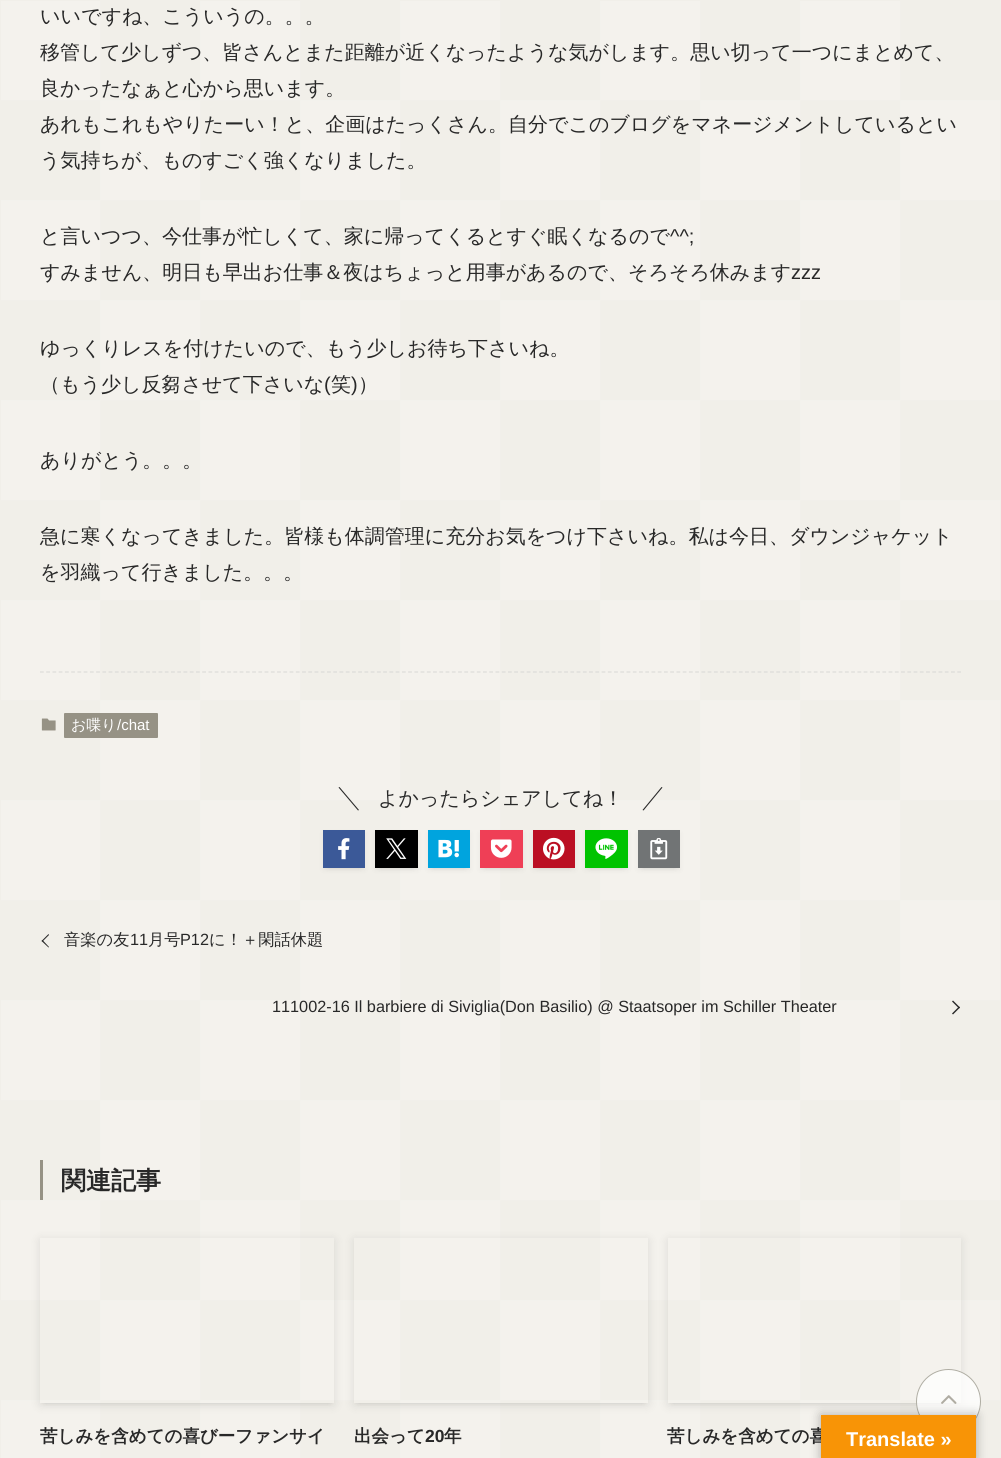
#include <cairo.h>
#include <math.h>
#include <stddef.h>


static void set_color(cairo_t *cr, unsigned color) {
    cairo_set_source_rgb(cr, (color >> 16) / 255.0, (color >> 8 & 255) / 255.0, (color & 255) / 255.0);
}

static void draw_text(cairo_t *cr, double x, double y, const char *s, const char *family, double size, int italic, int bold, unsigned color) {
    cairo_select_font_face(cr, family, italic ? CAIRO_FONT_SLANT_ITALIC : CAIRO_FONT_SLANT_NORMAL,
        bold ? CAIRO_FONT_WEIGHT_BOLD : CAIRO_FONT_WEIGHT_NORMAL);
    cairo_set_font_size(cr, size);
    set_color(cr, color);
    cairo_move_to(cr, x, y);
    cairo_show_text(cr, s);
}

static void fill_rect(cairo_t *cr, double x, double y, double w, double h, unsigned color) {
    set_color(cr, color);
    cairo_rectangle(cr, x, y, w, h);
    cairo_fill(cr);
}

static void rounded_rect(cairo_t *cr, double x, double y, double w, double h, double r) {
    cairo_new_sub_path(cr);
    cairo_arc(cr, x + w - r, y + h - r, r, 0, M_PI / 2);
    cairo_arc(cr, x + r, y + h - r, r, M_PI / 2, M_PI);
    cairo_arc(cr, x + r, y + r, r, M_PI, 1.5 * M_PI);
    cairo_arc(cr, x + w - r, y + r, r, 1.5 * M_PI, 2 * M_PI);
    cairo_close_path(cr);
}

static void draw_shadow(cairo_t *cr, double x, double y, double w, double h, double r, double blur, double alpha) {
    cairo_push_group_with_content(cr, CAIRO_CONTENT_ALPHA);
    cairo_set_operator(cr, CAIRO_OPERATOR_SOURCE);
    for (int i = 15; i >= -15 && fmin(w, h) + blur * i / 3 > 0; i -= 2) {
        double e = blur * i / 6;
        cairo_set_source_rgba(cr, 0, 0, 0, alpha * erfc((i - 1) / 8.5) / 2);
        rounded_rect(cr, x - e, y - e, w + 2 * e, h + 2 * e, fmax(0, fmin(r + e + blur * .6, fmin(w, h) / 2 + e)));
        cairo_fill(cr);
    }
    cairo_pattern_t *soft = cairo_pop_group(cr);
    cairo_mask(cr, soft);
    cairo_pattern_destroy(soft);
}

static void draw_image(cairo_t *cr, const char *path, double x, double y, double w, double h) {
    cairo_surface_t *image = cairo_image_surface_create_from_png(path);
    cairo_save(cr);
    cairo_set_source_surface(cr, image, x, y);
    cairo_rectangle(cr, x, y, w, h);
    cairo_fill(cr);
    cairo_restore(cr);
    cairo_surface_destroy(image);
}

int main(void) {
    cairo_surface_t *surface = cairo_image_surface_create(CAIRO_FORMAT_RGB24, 1001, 1458);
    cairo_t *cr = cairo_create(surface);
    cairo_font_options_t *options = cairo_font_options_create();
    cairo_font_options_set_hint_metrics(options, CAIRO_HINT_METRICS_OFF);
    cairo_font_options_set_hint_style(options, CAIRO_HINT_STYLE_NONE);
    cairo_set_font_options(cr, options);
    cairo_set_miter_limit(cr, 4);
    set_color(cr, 0xF1EFE9);
    cairo_paint(cr);
    draw_image(cr, "assets/img1.png", 1, 1, 999, 1457);
    draw_text(cr, 40, 23, "いいですね、こういうの。。。", "WenQuanYi Zen Hei Medium", 20, 0, 0, 0x282828);
    draw_text(cr, 40, 59, "移管して少しずつ、皆さんとまた距離が近くなったような気がします。思い切って一つにまとめて、", "WenQuanYi Zen Hei Medium", 20, 0, 0, 0x282828);
    draw_text(cr, 40, 95, "良かったなぁと心から思います。", "WenQuanYi Zen Hei Medium", 20, 0, 0, 0x282828);
    draw_text(cr, 40, 131, "あれもこれもやりたーい！と、企画はたっくさん。自分でこのブログをマネージメントしているとい", "WenQuanYi Zen Hei Medium", 20, 0, 0, 0x282828);
    draw_text(cr, 40, 167, "う気持ちが、ものすごく強くなりました。", "WenQuanYi Zen Hei Medium", 20, 0, 0, 0x282828);
    draw_text(cr, 40, 243, "と言いつつ、今仕事が忙しくて、家に帰ってくるとすぐ眠くなるので", "WenQuanYi Zen Hei Medium", 20, 0, 0, 0x282828);
    draw_text(cr, 670, 243, "^^;", "Liberation Sans", 20, 0, 0, 0x282828);
    draw_text(cr, 40, 279, "すみません、明日も早出お仕事＆夜はちょっと用事があるので、そろそろ休みます", "WenQuanYi Zen Hei Medium", 20, 0, 0, 0x282828);
    draw_text(cr, 791, 279, "zzz", "Liberation Sans", 20, 0, 0, 0x282828);
    draw_text(cr, 40, 355, "ゆっくりレスを付けたいので、もう少しお待ち下さいね。", "WenQuanYi Zen Hei Medium", 20, 0, 0, 0x282828);
    draw_text(cr, 40, 391, "（もう少し反芻させて下さいな", "WenQuanYi Zen Hei Medium", 20, 0, 0, 0x282828);
    draw_text(cr, 324, 391, "(", "Liberation Sans", 20, 0, 0, 0x282828);
    draw_text(cr, 331, 391, "笑", "WenQuanYi Zen Hei Medium", 20, 0, 0, 0x282828);
    draw_text(cr, 351, 391, ")", "Liberation Sans", 20, 0, 0, 0x282828);
    draw_text(cr, 358, 391, "）", "WenQuanYi Zen Hei Medium", 20, 0, 0, 0x282828);
    draw_text(cr, 40, 467, "ありがとう。。。", "WenQuanYi Zen Hei Medium", 20, 0, 0, 0x282828);
    draw_text(cr, 40, 543, "急に寒くなってきました。皆様も体調管理に充分お気をつけ下さいね。私は今日、ダウンジャケット", "WenQuanYi Zen Hei Medium", 20, 0, 0, 0x282828);
    draw_text(cr, 40, 579, "を羽織って行きました。。。", "WenQuanYi Zen Hei Medium", 20, 0, 0, 0x282828);
    cairo_new_path(cr);
    cairo_move_to(cr, 40, 672);
    cairo_line_to(cr, 961, 672);
    cairo_set_source_rgba(cr, 0.78, 0.78, 0.78, 0.5);
    cairo_set_line_width(cr, 1.2);
    cairo_set_dash(cr, (double[]){3.75, 2.49}, 2, 0);
    cairo_stroke(cr);
    draw_image(cr, "assets/img2.png", 41, 718, 15, 13);
    set_color(cr, 0x969285);
    rounded_rect(cr, 64, 713, 94, 25, 1);
    cairo_fill(cr);
    draw_text(cr, 71, 730, "お喋り", "WenQuanYi Zen Hei Medium", 15, 0, 0, 0xFFFFFF);
    draw_text(cr, 117, 730, "/chat", "Liberation Sans", 15, 0, 0, 0xFFFFFF);
    set_color(cr, 0x282828);
    cairo_new_path(cr);
    cairo_move_to(cr, 338.5, 787.5);
    cairo_line_to(cr, 339.5, 787);
    cairo_line_to(cr, 359, 810);
    cairo_line_to(cr, 358, 810.5);
    cairo_close_path(cr);
    cairo_fill(cr);
    draw_text(cr, 378, 805, "よかったらシェアしてね！", "WenQuanYi Zen Hei Medium", 20, 0, 0, 0x282828);
    cairo_new_path(cr);
    cairo_move_to(cr, 661.5, 787);
    cairo_line_to(cr, 662.5, 787.5);
    cairo_line_to(cr, 643.5, 810.5);
    cairo_line_to(cr, 642.5, 810);
    cairo_close_path(cr);
    cairo_fill(cr);
    set_color(cr, 0x000000);
    draw_shadow(cr, 328, 840, 32, 28, 0, 2.5, 0.1);
    draw_shadow(cr, 323, 833, 42, 37, 0, 2.5, 0.05);
    fill_rect(cr, 323, 830, 42, 38, 0x3B5998);
    draw_image(cr, "assets/img3.png", 338, 838, 12, 22);
    set_color(cr, 0x000000);
    draw_shadow(cr, 380, 840, 33, 28, 0, 2.5, 0.1);
    draw_shadow(cr, 375, 833, 43, 37, 0, 2.5, 0.05);
    fill_rect(cr, 375, 830, 43, 38, 0x000000);
    draw_image(cr, "assets/img4.png", 386, 838, 21, 21);
    set_color(cr, 0x000000);
    draw_shadow(cr, 433, 840, 32, 28, 0, 2.5, 0.1);
    draw_shadow(cr, 428, 833, 42, 37, 0, 2.5, 0.05);
    fill_rect(cr, 428, 830, 42, 38, 0x00A4DE);
    draw_image(cr, "assets/img5.png", 438, 839, 21, 19);
    set_color(cr, 0x000000);
    draw_shadow(cr, 485, 840, 33, 28, 0, 2.5, 0.1);
    draw_shadow(cr, 480, 833, 43, 37, 0, 2.5, 0.05);
    fill_rect(cr, 480, 830, 43, 38, 0xEF3F56);
    draw_image(cr, "assets/img6.png", 490, 839, 22, 19);
    set_color(cr, 0x000000);
    draw_shadow(cr, 538, 840, 32, 28, 0, 2.5, 0.1);
    draw_shadow(cr, 533, 833, 42, 37, 0, 2.5, 0.05);
    fill_rect(cr, 533, 830, 42, 38, 0xBB0F23);
    draw_image(cr, "assets/img7.png", 543, 837, 22, 23);
    set_color(cr, 0x000000);
    draw_shadow(cr, 590, 840, 33, 28, 0, 2.5, 0.1);
    draw_shadow(cr, 585, 833, 43, 37, 0, 2.5, 0.05);
    fill_rect(cr, 585, 830, 43, 38, 0x00C300);
    draw_image(cr, "assets/img8.png", 595, 838, 22, 21);
    set_color(cr, 0x000000);
    draw_shadow(cr, 643, 840, 32, 28, 0, 2.5, 0.1);
    draw_shadow(cr, 638, 833, 42, 37, 0, 2.5, 0.05);
    fill_rect(cr, 638, 830, 42, 38, 0x717475);
    draw_image(cr, "assets/img9.png", 650, 838, 18, 22);
    set_color(cr, 0x282828);
    cairo_new_path(cr);
    cairo_move_to(cr, 42.5, 940);
    cairo_line_to(cr, 49, 947);
    cairo_line_to(cr, 48.5, 947.5);
    cairo_line_to(cr, 41.5, 941);
    cairo_close_path(cr);
    cairo_fill(cr);
    cairo_new_path(cr);
    cairo_move_to(cr, 48.5, 934);
    cairo_line_to(cr, 49, 935);
    cairo_line_to(cr, 42.5, 941.5);
    cairo_line_to(cr, 41.5, 941);
    cairo_close_path(cr);
    cairo_fill(cr);
    draw_text(cr, 64, 945, "音楽の友", "WenQuanYi Zen Hei Medium", 16.25, 0, 0, 0x282828);
    draw_text(cr, 130, 945, "11", "Liberation Sans", 16.25, 0, 0, 0x282828);
    draw_text(cr, 148, 945, "月号", "WenQuanYi Zen Hei Medium", 16.25, 0, 0, 0x282828);
    draw_text(cr, 180, 945, "P12", "Liberation Sans", 16.25, 0, 0, 0x282828);
    draw_text(cr, 209, 945, "に！＋閑話休題", "WenQuanYi Zen Hei Medium", 16.25, 0, 0, 0x282828);
    draw_text(cr, 272, 1012, "111002-16 Il barbiere di Siviglia(Don Basilio) @ Staatsoper im Schiller Theater", "Liberation Sans", 16.25, 0, 0, 0x282828);
    cairo_new_path(cr);
    cairo_move_to(cr, 952, 1001.5);
    cairo_line_to(cr, 953, 1000.5);
    cairo_line_to(cr, 960, 1007.5);
    cairo_line_to(cr, 959, 1008.5);
    cairo_close_path(cr);
    cairo_fill(cr);
    cairo_new_path(cr);
    cairo_move_to(cr, 952, 1013.5);
    cairo_line_to(cr, 959, 1006.5);
    cairo_line_to(cr, 960, 1007.5);
    cairo_line_to(cr, 953, 1014.5);
    cairo_close_path(cr);
    cairo_fill(cr);
    fill_rect(cr, 40, 1160, 3, 40, 0x969285);
    draw_text(cr, 61, 1189, "関連記事", "WenQuanYi Zen Hei", 25, 0, 1, 0x282828);
    cairo_save(cr);
    cairo_set_fill_rule(cr, CAIRO_FILL_RULE_EVEN_ODD);
    cairo_new_path(cr);
    cairo_move_to(cr, 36, 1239);
    cairo_line_to(cr, 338, 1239);
    cairo_line_to(cr, 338, 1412);
    cairo_line_to(cr, 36, 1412);
    cairo_close_path(cr);
    cairo_move_to(cr, 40, 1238);
    cairo_line_to(cr, 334, 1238);
    cairo_line_to(cr, 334, 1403);
    cairo_line_to(cr, 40, 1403);
    cairo_close_path(cr);
    cairo_clip(cr);
    set_color(cr, 0x000000);
    draw_shadow(cr, 45, 1248, 284, 155, 0, 2.5, 0.1);
    cairo_restore(cr);
    cairo_save(cr);
    cairo_set_fill_rule(cr, CAIRO_FILL_RULE_EVEN_ODD);
    cairo_new_path(cr);
    cairo_move_to(cr, 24, 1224);
    cairo_line_to(cr, 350, 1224);
    cairo_line_to(cr, 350, 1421);
    cairo_line_to(cr, 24, 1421);
    cairo_close_path(cr);
    cairo_move_to(cr, 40, 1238);
    cairo_line_to(cr, 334, 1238);
    cairo_line_to(cr, 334, 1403);
    cairo_line_to(cr, 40, 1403);
    cairo_close_path(cr);
    cairo_clip(cr);
    set_color(cr, 0x000000);
    draw_shadow(cr, 40, 1240, 294, 165, 0, 5, 0.1);
    cairo_restore(cr);
    draw_text(cr, 40, 1442, "苦しみを含めての喜びーファンサイ", "WenQuanYi Zen Hei", 17.5, 0, 1, 0x282828);
    cairo_save(cr);
    cairo_set_fill_rule(cr, CAIRO_FILL_RULE_EVEN_ODD);
    cairo_new_path(cr);
    cairo_move_to(cr, 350, 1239);
    cairo_line_to(cr, 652, 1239);
    cairo_line_to(cr, 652, 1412);
    cairo_line_to(cr, 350, 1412);
    cairo_close_path(cr);
    cairo_move_to(cr, 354, 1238);
    cairo_line_to(cr, 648, 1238);
    cairo_line_to(cr, 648, 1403);
    cairo_line_to(cr, 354, 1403);
    cairo_close_path(cr);
    cairo_clip(cr);
    set_color(cr, 0x000000);
    draw_shadow(cr, 359, 1248, 284, 155, 0, 2.5, 0.1);
    cairo_restore(cr);
    cairo_save(cr);
    cairo_set_fill_rule(cr, CAIRO_FILL_RULE_EVEN_ODD);
    cairo_new_path(cr);
    cairo_move_to(cr, 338, 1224);
    cairo_line_to(cr, 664, 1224);
    cairo_line_to(cr, 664, 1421);
    cairo_line_to(cr, 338, 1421);
    cairo_close_path(cr);
    cairo_move_to(cr, 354, 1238);
    cairo_line_to(cr, 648, 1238);
    cairo_line_to(cr, 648, 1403);
    cairo_line_to(cr, 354, 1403);
    cairo_close_path(cr);
    cairo_clip(cr);
    set_color(cr, 0x000000);
    draw_shadow(cr, 354, 1240, 294, 165, 0, 5, 0.1);
    cairo_restore(cr);
    draw_text(cr, 354, 1442, "出会って", "WenQuanYi Zen Hei", 17.5, 0, 1, 0x282828);
    draw_text(cr, 425, 1442, "20", "Liberation Sans", 17.5, 0, 1, 0x282828);
    draw_text(cr, 444, 1442, "年", "WenQuanYi Zen Hei", 17.5, 0, 1, 0x282828);
    cairo_save(cr);
    cairo_set_fill_rule(cr, CAIRO_FILL_RULE_EVEN_ODD);
    cairo_new_path(cr);
    cairo_move_to(cr, 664, 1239);
    cairo_line_to(cr, 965, 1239);
    cairo_line_to(cr, 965, 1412);
    cairo_line_to(cr, 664, 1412);
    cairo_close_path(cr);
    cairo_move_to(cr, 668, 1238);
    cairo_line_to(cr, 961, 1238);
    cairo_line_to(cr, 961, 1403);
    cairo_line_to(cr, 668, 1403);
    cairo_close_path(cr);
    cairo_clip(cr);
    set_color(cr, 0x000000);
    draw_shadow(cr, 673, 1248, 283, 155, 0, 2.5, 0.1);
    cairo_restore(cr);
    cairo_save(cr);
    cairo_set_fill_rule(cr, CAIRO_FILL_RULE_EVEN_ODD);
    cairo_new_path(cr);
    cairo_move_to(cr, 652, 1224);
    cairo_line_to(cr, 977, 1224);
    cairo_line_to(cr, 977, 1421);
    cairo_line_to(cr, 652, 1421);
    cairo_close_path(cr);
    cairo_move_to(cr, 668, 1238);
    cairo_line_to(cr, 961, 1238);
    cairo_line_to(cr, 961, 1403);
    cairo_line_to(cr, 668, 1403);
    cairo_close_path(cr);
    cairo_clip(cr);
    set_color(cr, 0x000000);
    draw_shadow(cr, 668, 1240, 293, 165, 0, 5, 0.1);
    cairo_restore(cr);
    draw_text(cr, 667, 1442, "苦しみを含めての喜", "WenQuanYi Zen Hei", 17.5, 0, 1, 0x282828);
    cairo_set_source_rgba(cr, 1, 1, 1, 0.75);
    cairo_new_path(cr);
    cairo_arc(cr, 948.5, 1401.5, 32.5, 0, 2 * M_PI);
    cairo_fill(cr);
    cairo_arc(cr, 948.5, 1401.5, 32, 0, 2 * M_PI);
    cairo_set_source_rgba(cr, 0.588, 0.573, 0.522, 0.75);
    cairo_set_line_width(cr, 1);
    cairo_set_dash(cr, NULL, 0, 0);
    cairo_stroke(cr);
    draw_image(cr, "assets/img10.png", 941, 1395, 16, 9);
    set_color(cr, 0x000000);
    draw_shadow(cr, 821, 1415, 155, 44, 0, 5.5, 0.3);
    fill_rect(cr, 821, 1415, 155, 43, 0xF89406);
    draw_text(cr, 846, 1446, "Translate »", "Liberation Sans", 20, 0, 1, 0xFFFFFF);
    cairo_surface_write_to_png(surface, "output.png");
    cairo_font_options_destroy(options);
    cairo_destroy(cr);
    cairo_surface_destroy(surface);
    return 0;
}
